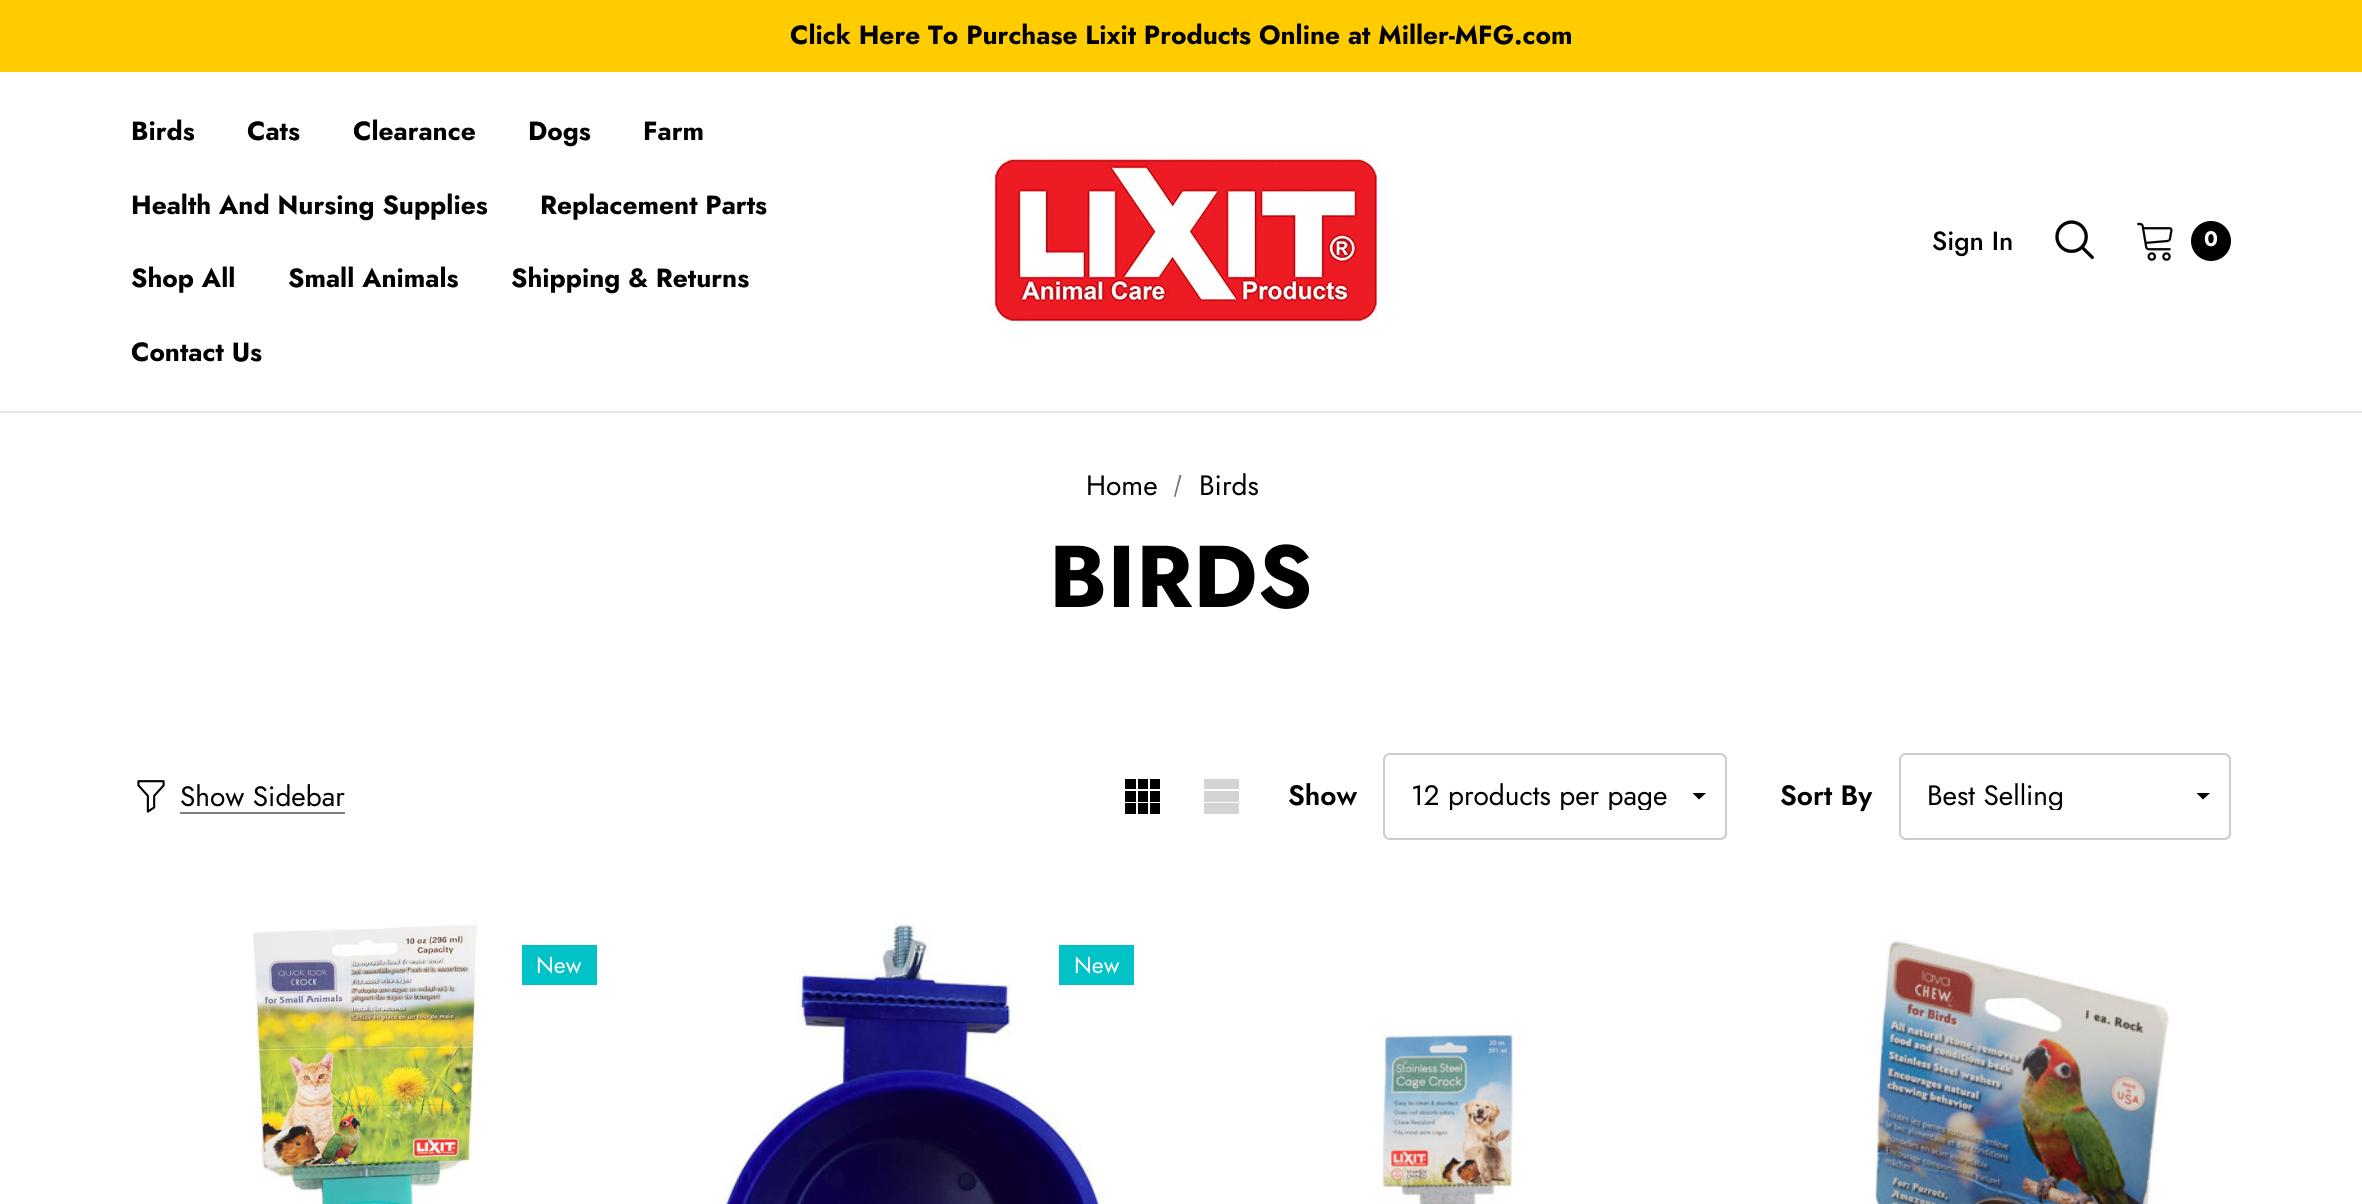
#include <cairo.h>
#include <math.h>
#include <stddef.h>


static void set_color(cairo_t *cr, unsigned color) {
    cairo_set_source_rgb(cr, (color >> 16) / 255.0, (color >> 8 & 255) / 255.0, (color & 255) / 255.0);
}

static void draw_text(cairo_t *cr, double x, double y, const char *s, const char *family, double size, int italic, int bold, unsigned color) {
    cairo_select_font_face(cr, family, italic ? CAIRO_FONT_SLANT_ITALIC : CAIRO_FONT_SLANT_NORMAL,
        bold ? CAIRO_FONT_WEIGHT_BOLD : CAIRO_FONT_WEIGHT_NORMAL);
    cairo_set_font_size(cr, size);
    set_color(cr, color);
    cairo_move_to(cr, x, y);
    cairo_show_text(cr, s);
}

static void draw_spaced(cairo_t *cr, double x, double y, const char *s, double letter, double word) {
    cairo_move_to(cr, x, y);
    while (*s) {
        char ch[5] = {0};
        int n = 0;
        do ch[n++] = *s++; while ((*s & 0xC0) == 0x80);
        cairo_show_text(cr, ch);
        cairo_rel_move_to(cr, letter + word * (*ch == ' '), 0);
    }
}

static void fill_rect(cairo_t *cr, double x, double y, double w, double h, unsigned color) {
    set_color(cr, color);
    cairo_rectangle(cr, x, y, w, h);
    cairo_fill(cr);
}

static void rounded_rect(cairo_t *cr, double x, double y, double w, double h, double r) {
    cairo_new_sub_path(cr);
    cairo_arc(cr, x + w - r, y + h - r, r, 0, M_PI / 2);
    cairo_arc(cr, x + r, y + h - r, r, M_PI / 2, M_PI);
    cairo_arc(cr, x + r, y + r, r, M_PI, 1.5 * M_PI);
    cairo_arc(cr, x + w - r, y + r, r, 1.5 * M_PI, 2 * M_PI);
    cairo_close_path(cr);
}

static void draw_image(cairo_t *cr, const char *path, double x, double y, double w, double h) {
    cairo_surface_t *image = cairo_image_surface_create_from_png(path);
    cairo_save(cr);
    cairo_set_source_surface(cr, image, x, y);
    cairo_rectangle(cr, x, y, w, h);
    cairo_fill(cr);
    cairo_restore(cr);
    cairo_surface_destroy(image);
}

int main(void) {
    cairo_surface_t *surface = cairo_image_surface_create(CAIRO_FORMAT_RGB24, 2362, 1204);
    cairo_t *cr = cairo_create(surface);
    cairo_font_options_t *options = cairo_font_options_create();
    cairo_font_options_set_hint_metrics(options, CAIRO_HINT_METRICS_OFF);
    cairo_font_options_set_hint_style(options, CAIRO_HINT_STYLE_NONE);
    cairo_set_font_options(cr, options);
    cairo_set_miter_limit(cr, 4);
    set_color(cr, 0xFFFFFF);
    cairo_paint(cr);
    fill_rect(cr, 0, 0, 2362, 72, 0xFFCC00);
    draw_text(cr, 790, 44, "Click Here To Purchase Lixit Products Online at Miller-MFG.com", "Jost", 26.25, 0, 1, 0x000000);
    fill_rect(cr, 0, 411, 2362, 2, 0xE6E6E6);
    draw_text(cr, 131, 140, "Birds", "Jost", 26.25, 0, 1, 0x000000);
    draw_text(cr, 247, 140, "Cats", "Jost", 26.25, 0, 1, 0x000000);
    draw_text(cr, 353, 140, "Clearance", "Jost", 26.25, 0, 1, 0x000000);
    draw_text(cr, 528, 140, "Dogs", "Jost", 26.25, 0, 1, 0x000000);
    draw_text(cr, 643, 140, "Farm", "Jost", 26.25, 0, 1, 0x000000);
    draw_text(cr, 131, 214, "Health And Nursing Supplies", "Jost", 26.25, 0, 1, 0x000000);
    draw_text(cr, 540, 214, "Replacement Parts", "Jost", 26.25, 0, 1, 0x000000);
    draw_text(cr, 131, 287, "Shop All", "Jost", 26.25, 0, 1, 0x000000);
    draw_text(cr, 288, 287, "Small Animals", "Jost", 26.25, 0, 1, 0x000000);
    draw_text(cr, 511, 287, "Shipping & Returns", "Jost", 26.25, 0, 1, 0x000000);
    draw_text(cr, 131, 361, "Contact Us", "Jost", 26.25, 0, 1, 0x000000);
    draw_image(cr, "assets/img1.png", 988, 152, 391, 172);
    draw_text(cr, 1932, 250, "Sign In", "Jost Medium", 26.25, 0, 0, 0x000000);
    draw_image(cr, "assets/img2.png", 2055, 220, 39, 39);
    draw_image(cr, "assets/img3.png", 2137, 222, 36, 39);
    cairo_arc(cr, 2211, 241, 20, 0, 2 * M_PI);
    cairo_fill(cr);
    draw_text(cr, 2204, 246, "0", "Jost", 21, 0, 1, 0xFFFFFF);
    draw_text(cr, 1086, 495, "Home", "Jost", 28, 0, 0, 0x000000);
    set_color(cr, 0x757575);
    cairo_new_path(cr);
    cairo_move_to(cr, 1179.5, 475);
    cairo_line_to(cr, 1181.5, 475);
    cairo_line_to(cr, 1175.5, 497);
    cairo_line_to(cr, 1174, 496.5);
    cairo_close_path(cr);
    cairo_fill(cr);
    draw_text(cr, 1199, 495, "Birds", "Jost", 28, 0, 0, 0x000000);
    cairo_select_font_face(cr, "Jost", CAIRO_FONT_SLANT_NORMAL, CAIRO_FONT_WEIGHT_BOLD);
    cairo_set_font_size(cr, 87.5);
    draw_spaced(cr, 1049, 607, "BIRDS", 0.5, 0);
    draw_image(cr, "assets/img4.png", 137, 780, 28, 33);
    fill_rect(cr, 180, 812, 165, 2, 0x7F7F7F);
    draw_text(cr, 180, 806, "Show Sidebar", "Jost", 28, 0, 0, 0x000000);
    fill_rect(cr, 1125, 791, 11, 11, 0x000000);
    fill_rect(cr, 1125, 779, 11, 10, 0x000000);
    fill_rect(cr, 1125, 803, 11, 11, 0x000000);
    fill_rect(cr, 1138, 791, 10, 11, 0x000000);
    fill_rect(cr, 1138, 779, 10, 10, 0x000000);
    fill_rect(cr, 1138, 803, 10, 11, 0x000000);
    fill_rect(cr, 1150, 791, 10, 11, 0x000000);
    fill_rect(cr, 1150, 779, 10, 10, 0x000000);
    fill_rect(cr, 1150, 803, 10, 11, 0x000000);
    fill_rect(cr, 1204, 779, 35, 10, 0xD4D4D4);
    fill_rect(cr, 1204, 791, 35, 11, 0xD4D4D4);
    fill_rect(cr, 1204, 803, 35, 11, 0xD4D4D4);
    draw_text(cr, 1288, 805, "Show", "Jost SemiBold", 28, 0, 0, 0x000000);
    cairo_new_path(cr);
    cairo_move_to(cr, 1706, 793);
    cairo_line_to(cr, 1699, 799.5);
    cairo_line_to(cr, 1692.5, 793);
    cairo_close_path(cr);
    cairo_fill(cr);
    rounded_rect(cr, 1384, 754, 342, 85, 6);
    set_color(cr, 0xCCCCCC);
    cairo_stroke(cr);
    cairo_save(cr);
    cairo_rectangle(cr, 1411, 782, 262, 28);
    cairo_clip(cr);
    draw_text(cr, 1411, 805, "12 products per page", "Jost", 28, 0, 0, 0x000000);
    cairo_restore(cr);
    draw_text(cr, 1780, 805, "Sort By", "Jost SemiBold", 28, 0, 0, 0x000000);
    cairo_new_path(cr);
    cairo_move_to(cr, 2210, 793);
    cairo_line_to(cr, 2203, 799.5);
    cairo_line_to(cr, 2196.5, 793);
    cairo_close_path(cr);
    cairo_fill(cr);
    rounded_rect(cr, 1900, 754, 330, 85, 6);
    set_color(cr, 0xCCCCCC);
    cairo_stroke(cr);
    cairo_save(cr);
    cairo_rectangle(cr, 1927, 782, 250, 28);
    cairo_clip(cr);
    draw_text(cr, 1927, 805, "Best Selling", "Jost", 28, 0, 0, 0x000000);
    cairo_restore(cr);
    draw_image(cr, "assets/img5.png", 253, 924, 226, 280);
    fill_rect(cr, 522, 945, 75, 40, 0x00C2C7);
    draw_text(cr, 536, 973, "New", "Jost", 23, 0, 0, 0xFFFFFF);
    draw_image(cr, "assets/img6.png", 724, 924, 383, 280);
    fill_rect(cr, 1059, 945, 75, 40, 0x00C2C7);
    draw_text(cr, 1074, 973, "New", "Jost", 23, 0, 0, 0xFFFFFF);
    draw_image(cr, "assets/img7.png", 1874, 938, 296, 266);
    draw_image(cr, "assets/img8.png", 1379, 1032, 135, 172);
    cairo_surface_write_to_png(surface, "output.png");
    cairo_font_options_destroy(options);
    cairo_destroy(cr);
    cairo_surface_destroy(surface);
    return 0;
}
